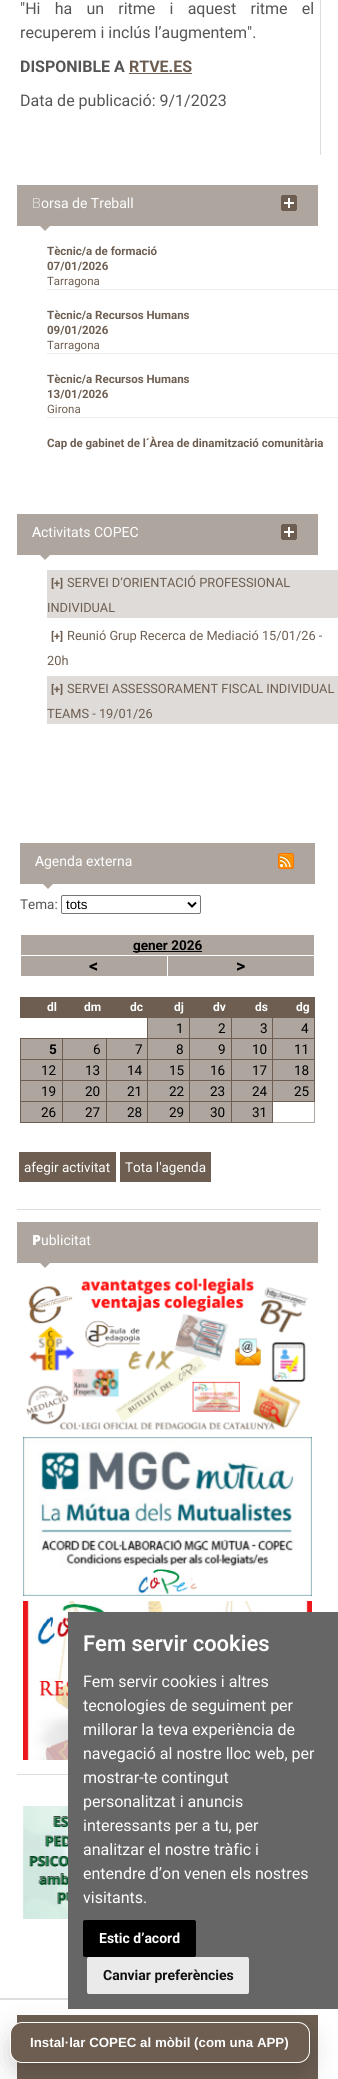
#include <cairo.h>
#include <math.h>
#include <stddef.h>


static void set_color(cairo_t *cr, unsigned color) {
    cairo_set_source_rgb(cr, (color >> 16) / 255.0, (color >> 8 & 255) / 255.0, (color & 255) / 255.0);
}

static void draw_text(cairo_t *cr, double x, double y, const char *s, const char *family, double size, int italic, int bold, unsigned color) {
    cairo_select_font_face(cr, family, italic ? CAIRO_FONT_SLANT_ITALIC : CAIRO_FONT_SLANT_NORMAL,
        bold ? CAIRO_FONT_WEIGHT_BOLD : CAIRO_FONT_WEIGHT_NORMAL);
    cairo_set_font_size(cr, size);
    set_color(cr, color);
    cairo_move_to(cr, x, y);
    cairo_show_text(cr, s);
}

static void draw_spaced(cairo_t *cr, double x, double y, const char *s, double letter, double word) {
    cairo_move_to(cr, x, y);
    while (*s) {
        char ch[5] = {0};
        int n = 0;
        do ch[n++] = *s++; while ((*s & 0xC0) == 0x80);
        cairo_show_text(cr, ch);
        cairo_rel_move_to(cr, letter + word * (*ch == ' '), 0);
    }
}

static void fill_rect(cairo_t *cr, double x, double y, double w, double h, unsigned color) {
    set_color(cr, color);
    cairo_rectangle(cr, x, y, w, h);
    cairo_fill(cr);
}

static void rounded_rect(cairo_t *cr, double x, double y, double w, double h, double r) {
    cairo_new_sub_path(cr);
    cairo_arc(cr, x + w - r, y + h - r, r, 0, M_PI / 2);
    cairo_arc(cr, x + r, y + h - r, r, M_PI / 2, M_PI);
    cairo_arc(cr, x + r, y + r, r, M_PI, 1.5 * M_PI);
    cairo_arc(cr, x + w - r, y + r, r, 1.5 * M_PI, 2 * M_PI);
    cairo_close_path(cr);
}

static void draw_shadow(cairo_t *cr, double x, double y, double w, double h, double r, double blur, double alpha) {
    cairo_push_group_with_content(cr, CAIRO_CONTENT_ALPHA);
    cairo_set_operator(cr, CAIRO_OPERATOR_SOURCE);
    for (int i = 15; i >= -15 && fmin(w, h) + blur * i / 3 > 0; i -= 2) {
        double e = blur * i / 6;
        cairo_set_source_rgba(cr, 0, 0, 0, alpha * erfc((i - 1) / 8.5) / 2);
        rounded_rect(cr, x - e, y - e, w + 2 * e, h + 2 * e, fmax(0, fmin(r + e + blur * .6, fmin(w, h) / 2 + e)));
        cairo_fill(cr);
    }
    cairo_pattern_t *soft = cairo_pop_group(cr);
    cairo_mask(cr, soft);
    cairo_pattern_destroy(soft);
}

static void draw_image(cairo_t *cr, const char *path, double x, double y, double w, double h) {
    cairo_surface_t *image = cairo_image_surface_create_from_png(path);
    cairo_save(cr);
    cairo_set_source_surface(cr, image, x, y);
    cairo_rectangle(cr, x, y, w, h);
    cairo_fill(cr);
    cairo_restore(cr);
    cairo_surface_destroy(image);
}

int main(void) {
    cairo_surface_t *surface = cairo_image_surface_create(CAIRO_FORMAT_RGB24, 338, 2079);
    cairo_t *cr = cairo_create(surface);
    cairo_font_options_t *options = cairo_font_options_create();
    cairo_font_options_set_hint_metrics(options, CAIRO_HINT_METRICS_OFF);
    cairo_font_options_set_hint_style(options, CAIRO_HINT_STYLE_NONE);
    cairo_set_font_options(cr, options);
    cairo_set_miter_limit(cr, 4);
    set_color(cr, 0xFFFFFF);
    cairo_paint(cr);
    fill_rect(cr, 320, 0, 1, 155, 0xDEDEDE);
    cairo_select_font_face(cr, "Roboto", CAIRO_FONT_SLANT_NORMAL, CAIRO_FONT_WEIGHT_NORMAL);
    cairo_set_font_size(cr, 16);
    set_color(cr, 0x555555);
    draw_spaced(cr, 20, 14, "\"Hi ha un ritme i aquest ritme el", 0, 10.25);
    draw_text(cr, 20, 38, "recuperem i inclús l’augmentem\".", "Roboto", 16, 0, 0, 0x555555);
    draw_text(cr, 20, 72, "DISPONIBLE A", "Roboto", 16, 0, 1, 0x555555);
    draw_text(cr, 129, 72, "RTVE.ES", "Roboto", 16, 0, 1, 0x6D5E51);
    fill_rect(cr, 129, 73, 63, 1, 0x6D5E51);
    draw_text(cr, 20, 106, "Data de publicació: 9/1/2023", "Roboto", 16, 0, 0, 0x555555);
    fill_rect(cr, 17, 185, 301, 41, 0xADA59E);
    draw_text(cr, 32, 208, "B", "Noto Sans ExtraLight", 14, 0, 0, 0xFFFFFF);
    draw_text(cr, 41, 208, "orsa de Treball", "Roboto", 14, 0, 0, 0xFFFFFF);
    draw_image(cr, "assets/img1.png", 281, 195, 16, 16);
    set_color(cr, 0xADA59E);
    cairo_new_path(cr);
    cairo_move_to(cr, 39, 225);
    cairo_line_to(cr, 51, 225);
    cairo_line_to(cr, 45, 231);
    cairo_close_path(cr);
    cairo_fill(cr);
    fill_rect(cr, 47, 289, 291, 1, 0xECECEC);
    draw_text(cr, 47, 255, "Tècnic/a de formació", "Roboto", 11.5, 0, 1, 0x6D5E51);
    draw_text(cr, 47, 270, "07/01/2026", "Roboto", 11.5, 0, 1, 0x6D5E51);
    draw_text(cr, 47, 285, "Tarragona", "Roboto", 11.5, 0, 0, 0x6D5E51);
    fill_rect(cr, 47, 353, 291, 1, 0xECECEC);
    draw_text(cr, 47, 319, "Tècnic/a Recursos Humans", "Roboto", 11.5, 0, 1, 0x6D5E51);
    draw_text(cr, 47, 334, "09/01/2026", "Roboto", 11.5, 0, 1, 0x6D5E51);
    draw_text(cr, 47, 349, "Tarragona", "Roboto", 11.5, 0, 0, 0x6D5E51);
    fill_rect(cr, 47, 417, 291, 1, 0xECECEC);
    draw_text(cr, 47, 383, "Tècnic/a Recursos Humans", "Roboto", 11.5, 0, 1, 0x6D5E51);
    draw_text(cr, 47, 398, "13/01/2026", "Roboto", 11.5, 0, 1, 0x6D5E51);
    draw_text(cr, 47, 413, "Girona", "Roboto", 11.5, 0, 0, 0x6D5E51);
    draw_text(cr, 47, 447, "Cap de gabinet de l´Àrea de dinamització comunitària", "Roboto", 11.5, 0, 1, 0x6D5E51);
    fill_rect(cr, 17, 514, 301, 41, 0xADA59E);
    draw_text(cr, 32, 537, "A", "Noto Sans Medium", 14, 0, 0, 0xFFFFFF);
    draw_text(cr, 41, 537, "ctivitats COPEC", "Roboto", 14, 0, 0, 0xFFFFFF);
    draw_image(cr, "assets/img1.png", 281, 524, 16, 16);
    set_color(cr, 0xADA59E);
    cairo_new_path(cr);
    cairo_move_to(cr, 39, 554);
    cairo_line_to(cr, 51, 554);
    cairo_line_to(cr, 45, 560);
    cairo_close_path(cr);
    cairo_fill(cr);
    fill_rect(cr, 47, 570, 291, 48, 0xDEDBD8);
    draw_text(cr, 51, 587, "[+]", "Roboto", 11, 0, 1, 0x6D5E51);
    draw_text(cr, 67, 587, "SERVEI D’ORIENTACIÓ PROFESSIONAL", "Roboto", 12.8, 0, 0, 0x6D5E51);
    draw_text(cr, 47, 612, "INDIVIDUAL", "Roboto", 12.8, 0, 0, 0x6D5E51);
    draw_text(cr, 51, 640, "[+]", "Roboto", 11, 0, 1, 0x6D5E51);
    draw_text(cr, 67, 640, "Reunió Grup Recerca de Mediació 15/01/26 -", "Roboto", 12.8, 0, 0, 0x6D5E51);
    draw_text(cr, 47, 665, "20h", "Roboto", 12.8, 0, 0, 0x6D5E51);
    fill_rect(cr, 47, 676, 291, 48, 0xDEDBD8);
    draw_text(cr, 51, 693, "[+]", "Roboto", 11, 0, 1, 0x6D5E51);
    draw_text(cr, 67, 693, "SERVEI ASSESSORAMENT FISCAL INDIVIDUAL", "Roboto", 12.8, 0, 0, 0x6D5E51);
    draw_text(cr, 47, 718, "TEAMS - 19/01/26", "Roboto", 12.8, 0, 0, 0x6D5E51);
    fill_rect(cr, 17, 1209, 304, 1, 0xDEDEDE);
    fill_rect(cr, 20, 843, 295, 41, 0xADA59E);
    draw_text(cr, 35, 866, "A", "Noto Sans Medium", 14, 0, 0, 0xFFFFFF);
    draw_text(cr, 44, 866, "genda externa", "Roboto", 14, 0, 0, 0xFFFFFF);
    draw_image(cr, "assets/img2.png", 278, 853, 16, 16);
    set_color(cr, 0xADA59E);
    cairo_new_path(cr);
    cairo_move_to(cr, 42, 883);
    cairo_line_to(cr, 54, 883);
    cairo_line_to(cr, 48, 889);
    cairo_close_path(cr);
    cairo_fill(cr);
    draw_text(cr, 20, 909, "Tema:", "Roboto", 13.5, 0, 0, 0x555555);
    rounded_rect(cr, 61.5, 895.5, 139, 18, 1.5);
    set_color(cr, 0x767676);
    cairo_set_line_width(cr, 1);
    cairo_stroke(cr);
    cairo_new_path(cr);
    cairo_move_to(cr, 188, 902.5);
    cairo_line_to(cr, 192, 906.5);
    cairo_line_to(cr, 196, 902.5);
    set_color(cr, 0x000000);
    cairo_set_line_width(cr, 2);
    cairo_stroke(cr);
    draw_text(cr, 66, 909, "tots", "Liberation Sans", 13.3, 0, 0, 0x000000);
    fill_rect(cr, 21, 935, 293, 20, 0xADA59E);
    fill_rect(cr, 133, 951, 69, 1, 0x000000);
    draw_text(cr, 133, 950, "gener 2026", "Roboto", 13.5, 0, 1, 0x000000);
    fill_rect(cr, 21, 956, 146, 20, 0xADA59E);
    draw_text(cr, 89, 972, "<", "Roboto", 18, 0, 1, 0x000000);
    fill_rect(cr, 168, 956, 146, 20, 0xADA59E);
    draw_text(cr, 236, 972, ">", "Roboto", 18, 0, 1, 0x000000);
    fill_rect(cr, 20, 997, 295, 21, 0x6D5E51);
    draw_text(cr, 47, 1011, "dl", "Roboto", 12, 0, 1, 0xFFFFFF);
    draw_text(cr, 84, 1011, "dm", "Roboto", 12, 0, 1, 0xFFFFFF);
    draw_text(cr, 130, 1011, "dc", "Roboto", 12, 0, 1, 0xFFFFFF);
    draw_text(cr, 174, 1011, "dj", "Roboto", 12, 0, 1, 0xFFFFFF);
    draw_text(cr, 213, 1011, "dv", "Roboto", 12, 0, 1, 0xFFFFFF);
    draw_text(cr, 255, 1011, "ds", "Roboto", 12, 0, 1, 0xFFFFFF);
    draw_text(cr, 296, 1011, "dg", "Roboto", 12, 0, 1, 0xFFFFFF);
    fill_rect(cr, 148, 1018, 41, 20, 0xADA59E);
    fill_rect(cr, 272, 1038, 43, 1, 0x6D5E51);
    fill_rect(cr, 272, 1059, 43, 1, 0x6D5E51);
    fill_rect(cr, 272, 1080, 43, 1, 0x6D5E51);
    fill_rect(cr, 314, 1101, 1, 22, 0xADA59E);
    fill_rect(cr, 314, 1080, 1, 22, 0x6D5E51);
    fill_rect(cr, 231, 1101, 42, 1, 0x6D5E51);
    fill_rect(cr, 272, 1101, 1, 22, 0x6D5E51);
    fill_rect(cr, 272, 1101, 43, 1, 0x6D5E51);
    fill_rect(cr, 272, 1080, 1, 22, 0x6D5E51);
    fill_rect(cr, 231, 1080, 42, 1, 0x6D5E51);
    fill_rect(cr, 272, 1059, 1, 22, 0x6D5E51);
    fill_rect(cr, 231, 1059, 42, 1, 0x6D5E51);
    fill_rect(cr, 272, 1038, 1, 22, 0x6D5E51);
    fill_rect(cr, 231, 1038, 42, 1, 0x6D5E51);
    fill_rect(cr, 231, 1122, 42, 1, 0x6D5E51);
    fill_rect(cr, 231, 1101, 1, 22, 0x6D5E51);
    fill_rect(cr, 189, 1101, 43, 1, 0x6D5E51);
    fill_rect(cr, 231, 1080, 1, 22, 0x6D5E51);
    fill_rect(cr, 189, 1080, 43, 1, 0x6D5E51);
    fill_rect(cr, 231, 1059, 1, 22, 0x6D5E51);
    fill_rect(cr, 189, 1059, 43, 1, 0x6D5E51);
    fill_rect(cr, 231, 1038, 1, 22, 0x6D5E51);
    fill_rect(cr, 189, 1038, 43, 1, 0x6D5E51);
    fill_rect(cr, 189, 1122, 43, 1, 0x6D5E51);
    fill_rect(cr, 189, 1101, 1, 22, 0x6D5E51);
    fill_rect(cr, 147, 1101, 43, 1, 0x6D5E51);
    fill_rect(cr, 189, 1080, 1, 22, 0x6D5E51);
    fill_rect(cr, 147, 1080, 43, 1, 0x6D5E51);
    fill_rect(cr, 189, 1059, 1, 22, 0x6D5E51);
    fill_rect(cr, 147, 1059, 43, 1, 0x6D5E51);
    fill_rect(cr, 189, 1038, 1, 22, 0x6D5E51);
    fill_rect(cr, 147, 1038, 43, 1, 0x6D5E51);
    fill_rect(cr, 147, 1122, 43, 1, 0x6D5E51);
    fill_rect(cr, 147, 1101, 1, 22, 0x6D5E51);
    fill_rect(cr, 106, 1101, 42, 1, 0x6D5E51);
    fill_rect(cr, 147, 1080, 1, 22, 0x6D5E51);
    fill_rect(cr, 106, 1080, 42, 1, 0x6D5E51);
    fill_rect(cr, 147, 1059, 1, 22, 0x6D5E51);
    fill_rect(cr, 106, 1059, 42, 1, 0x6D5E51);
    fill_rect(cr, 147, 1038, 1, 22, 0x6D5E51);
    fill_rect(cr, 106, 1038, 42, 1, 0x6D5E51);
    fill_rect(cr, 147, 1017, 1, 22, 0x6D5E51);
    draw_text(cr, 176, 1033, "1", "Roboto", 13.5, 0, 0, 0x000000);
    fill_rect(cr, 190, 1018, 41, 20, 0xADA59E);
    fill_rect(cr, 189, 1017, 1, 22, 0x6D5E51);
    draw_text(cr, 218, 1033, "2", "Roboto", 13.5, 0, 0, 0x000000);
    fill_rect(cr, 232, 1018, 40, 20, 0xADA59E);
    fill_rect(cr, 231, 1017, 1, 22, 0x6D5E51);
    draw_text(cr, 260, 1033, "3", "Roboto", 13.5, 0, 0, 0x000000);
    fill_rect(cr, 273, 1018, 41, 20, 0xADA59E);
    fill_rect(cr, 272, 1017, 1, 22, 0x6D5E51);
    draw_text(cr, 301, 1033, "4", "Roboto", 13.5, 0, 0, 0x000000);
    fill_rect(cr, 21, 1039, 41, 20, 0xADA59E);
    fill_rect(cr, 106, 1122, 42, 1, 0x6D5E51);
    fill_rect(cr, 106, 1101, 1, 22, 0x6D5E51);
    fill_rect(cr, 62, 1101, 45, 1, 0x6D5E51);
    fill_rect(cr, 106, 1080, 1, 22, 0x6D5E51);
    fill_rect(cr, 62, 1080, 45, 1, 0x6D5E51);
    fill_rect(cr, 106, 1059, 1, 22, 0x6D5E51);
    fill_rect(cr, 62, 1059, 45, 1, 0x6D5E51);
    fill_rect(cr, 106, 1038, 1, 22, 0x6D5E51);
    fill_rect(cr, 62, 1038, 45, 1, 0x6D5E51);
    fill_rect(cr, 62, 1122, 45, 1, 0x6D5E51);
    fill_rect(cr, 62, 1101, 1, 22, 0x6D5E51);
    fill_rect(cr, 20, 1101, 43, 1, 0x6D5E51);
    fill_rect(cr, 62, 1080, 1, 22, 0x6D5E51);
    fill_rect(cr, 20, 1080, 43, 1, 0x6D5E51);
    fill_rect(cr, 62, 1059, 1, 22, 0x6D5E51);
    fill_rect(cr, 20, 1059, 43, 1, 0x6D5E51);
    fill_rect(cr, 62, 1038, 1, 22, 0x6D5E51);
    fill_rect(cr, 20, 1038, 43, 1, 0x6D5E51);
    fill_rect(cr, 20, 1122, 43, 1, 0x6D5E51);
    fill_rect(cr, 20, 1101, 1, 22, 0x6D5E51);
    fill_rect(cr, 20, 1080, 1, 22, 0x6D5E51);
    fill_rect(cr, 20, 1059, 1, 22, 0x6D5E51);
    fill_rect(cr, 20, 1038, 1, 22, 0x6D5E51);
    draw_text(cr, 49, 1054, "5", "Roboto", 13.5, 0, 1, 0x000000);
    fill_rect(cr, 63, 1039, 43, 20, 0xADA59E);
    draw_text(cr, 93, 1054, "6", "Roboto", 13.5, 0, 0, 0x000000);
    fill_rect(cr, 107, 1039, 40, 20, 0xADA59E);
    draw_text(cr, 135, 1054, "7", "Roboto", 13.5, 0, 0, 0x000000);
    fill_rect(cr, 148, 1039, 41, 20, 0xADA59E);
    draw_text(cr, 176, 1054, "8", "Roboto", 13.5, 0, 0, 0x000000);
    fill_rect(cr, 190, 1039, 41, 20, 0xADA59E);
    draw_text(cr, 218, 1054, "9", "Roboto", 13.5, 0, 0, 0x000000);
    fill_rect(cr, 232, 1039, 40, 20, 0xADA59E);
    draw_text(cr, 252, 1054, "10", "Roboto", 13.5, 0, 0, 0x000000);
    fill_rect(cr, 273, 1039, 41, 20, 0xADA59E);
    fill_rect(cr, 314, 1059, 1, 22, 0x6D5E51);
    fill_rect(cr, 314, 1017, 1, 43, 0x6D5E51);
    draw_text(cr, 294, 1054, "11", "Roboto", 13.5, 0, 0, 0x000000);
    fill_rect(cr, 21, 1060, 41, 20, 0xADA59E);
    draw_text(cr, 41, 1075, "12", "Roboto", 13.5, 0, 0, 0x000000);
    fill_rect(cr, 63, 1060, 43, 20, 0xADA59E);
    draw_text(cr, 85, 1075, "13", "Roboto", 13.5, 0, 0, 0x000000);
    fill_rect(cr, 107, 1060, 40, 20, 0xADA59E);
    draw_text(cr, 127, 1075, "14", "Roboto", 13.5, 0, 0, 0x000000);
    fill_rect(cr, 148, 1060, 41, 20, 0xADA59E);
    draw_text(cr, 169, 1075, "15", "Roboto", 13.5, 0, 0, 0x000000);
    fill_rect(cr, 190, 1060, 41, 20, 0xADA59E);
    draw_text(cr, 210, 1075, "16", "Roboto", 13.5, 0, 0, 0x000000);
    fill_rect(cr, 232, 1060, 40, 20, 0xADA59E);
    draw_text(cr, 252, 1075, "17", "Roboto", 13.5, 0, 0, 0x000000);
    fill_rect(cr, 273, 1060, 41, 20, 0xADA59E);
    draw_text(cr, 294, 1075, "18", "Roboto", 13.5, 0, 0, 0x000000);
    fill_rect(cr, 21, 1081, 41, 20, 0xADA59E);
    draw_text(cr, 41, 1096, "19", "Roboto", 13.5, 0, 0, 0x000000);
    fill_rect(cr, 63, 1081, 43, 20, 0xADA59E);
    draw_text(cr, 85, 1096, "20", "Roboto", 13.5, 0, 0, 0x000000);
    fill_rect(cr, 107, 1081, 40, 20, 0xADA59E);
    draw_text(cr, 127, 1096, "21", "Roboto", 13.5, 0, 0, 0x000000);
    fill_rect(cr, 148, 1081, 41, 20, 0xADA59E);
    draw_text(cr, 169, 1096, "22", "Roboto", 13.5, 0, 0, 0x000000);
    fill_rect(cr, 190, 1081, 41, 20, 0xADA59E);
    draw_text(cr, 210, 1096, "23", "Roboto", 13.5, 0, 0, 0x000000);
    fill_rect(cr, 232, 1081, 40, 20, 0xADA59E);
    draw_text(cr, 252, 1096, "24", "Roboto", 13.5, 0, 0, 0x000000);
    fill_rect(cr, 273, 1081, 41, 20, 0xADA59E);
    draw_text(cr, 294, 1096, "25", "Roboto", 13.5, 0, 0, 0x000000);
    fill_rect(cr, 273, 1122, 42, 1, 0xADA59E);
    fill_rect(cr, 21, 1102, 41, 20, 0xADA59E);
    draw_text(cr, 41, 1117, "26", "Roboto", 13.5, 0, 0, 0x000000);
    fill_rect(cr, 63, 1102, 43, 20, 0xADA59E);
    draw_text(cr, 85, 1117, "27", "Roboto", 13.5, 0, 0, 0x000000);
    fill_rect(cr, 107, 1102, 40, 20, 0xADA59E);
    draw_text(cr, 127, 1117, "28", "Roboto", 13.5, 0, 0, 0x000000);
    fill_rect(cr, 148, 1102, 41, 20, 0xADA59E);
    draw_text(cr, 169, 1117, "29", "Roboto", 13.5, 0, 0, 0x000000);
    fill_rect(cr, 190, 1102, 41, 20, 0xADA59E);
    draw_text(cr, 210, 1117, "30", "Roboto", 13.5, 0, 0, 0x000000);
    fill_rect(cr, 232, 1102, 40, 20, 0xADA59E);
    draw_text(cr, 252, 1117, "31", "Roboto", 13.5, 0, 0, 0x000000);
    fill_rect(cr, 19, 1152, 97, 30, 0x6D5E51);
    draw_text(cr, 24, 1172, "afegir activitat", "Roboto", 13.5, 0, 0, 0xFFFFFF);
    fill_rect(cr, 120, 1152, 91, 30, 0x6D5E51);
    draw_text(cr, 125, 1172, "Tota l'agenda", "Roboto", 13.5, 0, 0, 0xFFFFFF);
    fill_rect(cr, 17, 1774, 51, 1, 0xDEDEDE);
    fill_rect(cr, 17, 1222, 301, 41, 0xADA59E);
    draw_text(cr, 32, 1245, "P", "Noto Sans Black", 14, 0, 0, 0xFFFFFF);
    draw_text(cr, 41, 1245, "ublicitat", "Roboto", 14, 0, 0, 0xFFFFFF);
    set_color(cr, 0xADA59E);
    cairo_new_path(cr);
    cairo_move_to(cr, 39, 1262);
    cairo_line_to(cr, 51, 1262);
    cairo_line_to(cr, 45, 1268);
    cairo_close_path(cr);
    cairo_fill(cr);
    draw_image(cr, "assets/img3.png", 26, 1277, 282, 153);
    draw_image(cr, "assets/img4.png", 23, 1437, 289, 159);
    draw_image(cr, "assets/img5.png", 23, 1601, 289, 159);
    draw_image(cr, "assets/img6.png", 22, 1806, 46, 113);
    fill_rect(cr, 0, 1998, 68, 2, 0xDEDEDE);
    fill_rect(cr, 17, 2015, 301, 64, 0x6D5E51);
    fill_rect(cr, 68, 1612, 270, 397, 0x666666);
    set_color(cr, 0xEAEAEA);
    rounded_rect(cr, 87, 1957, 162, 37, 2);
    cairo_fill(cr);
    set_color(cr, 0x000000);
    draw_shadow(cr, 10, 2032, 300, 41, 12, 14, 0.18);
    set_color(cr, 0x6D5E51);
    rounded_rect(cr, 10.5, 2022.5, 299, 40, 11.5);
    cairo_fill_preserve(cr);
    set_color(cr, 0xFFFFFF);
    cairo_set_line_width(cr, 1);
    cairo_stroke(cr);
    draw_text(cr, 30, 2047, "Instal·lar COPEC al mòbil (com una APP)", "Liberation Sans", 13.3, 0, 1, 0xFFFFFF);
    draw_text(cr, 83, 1651, "Fem servir cookies", "Roboto SemiBold", 22, 0, 0, 0xFFFFFF);
    draw_text(cr, 83, 1687, "Fem servir cookies i altres", "Roboto", 16, 0, 0, 0xFFFFFF);
    draw_text(cr, 83, 1711, "tecnologies de seguiment per", "Roboto", 16, 0, 0, 0xFFFFFF);
    draw_text(cr, 83, 1735, "millorar la teva experiència de", "Roboto", 16, 0, 0, 0xFFFFFF);
    draw_text(cr, 83, 1759, "navegació al nostre lloc web, per", "Roboto", 16, 0, 0, 0xFFFFFF);
    draw_text(cr, 83, 1783, "mostrar-te contingut", "Roboto", 16, 0, 0, 0xFFFFFF);
    draw_text(cr, 83, 1807, "personalitzat i anuncis", "Roboto", 16, 0, 0, 0xFFFFFF);
    draw_text(cr, 83, 1831, "interessants per a tu, per", "Roboto", 16, 0, 0, 0xFFFFFF);
    draw_text(cr, 83, 1855, "analitzar el nostre tràfic i", "Roboto", 16, 0, 0, 0xFFFFFF);
    draw_text(cr, 83, 1879, "entendre d’on venen els nostres", "Roboto", 16, 0, 0, 0xFFFFFF);
    draw_text(cr, 83, 1903, "visitants.", "Roboto", 16, 0, 0, 0xFFFFFF);
    set_color(cr, 0x000000);
    rounded_rect(cr, 83, 1920, 113, 37, 2);
    cairo_fill(cr);
    draw_text(cr, 99, 1943, "Estic d’acord", "Roboto", 14, 0, 1, 0xFFFFFF);
    draw_text(cr, 103, 1980, "Canviar preferències", "Roboto", 14, 0, 1, 0x111111);
    cairo_surface_write_to_png(surface, "output.png");
    cairo_font_options_destroy(options);
    cairo_destroy(cr);
    cairo_surface_destroy(surface);
    return 0;
}
